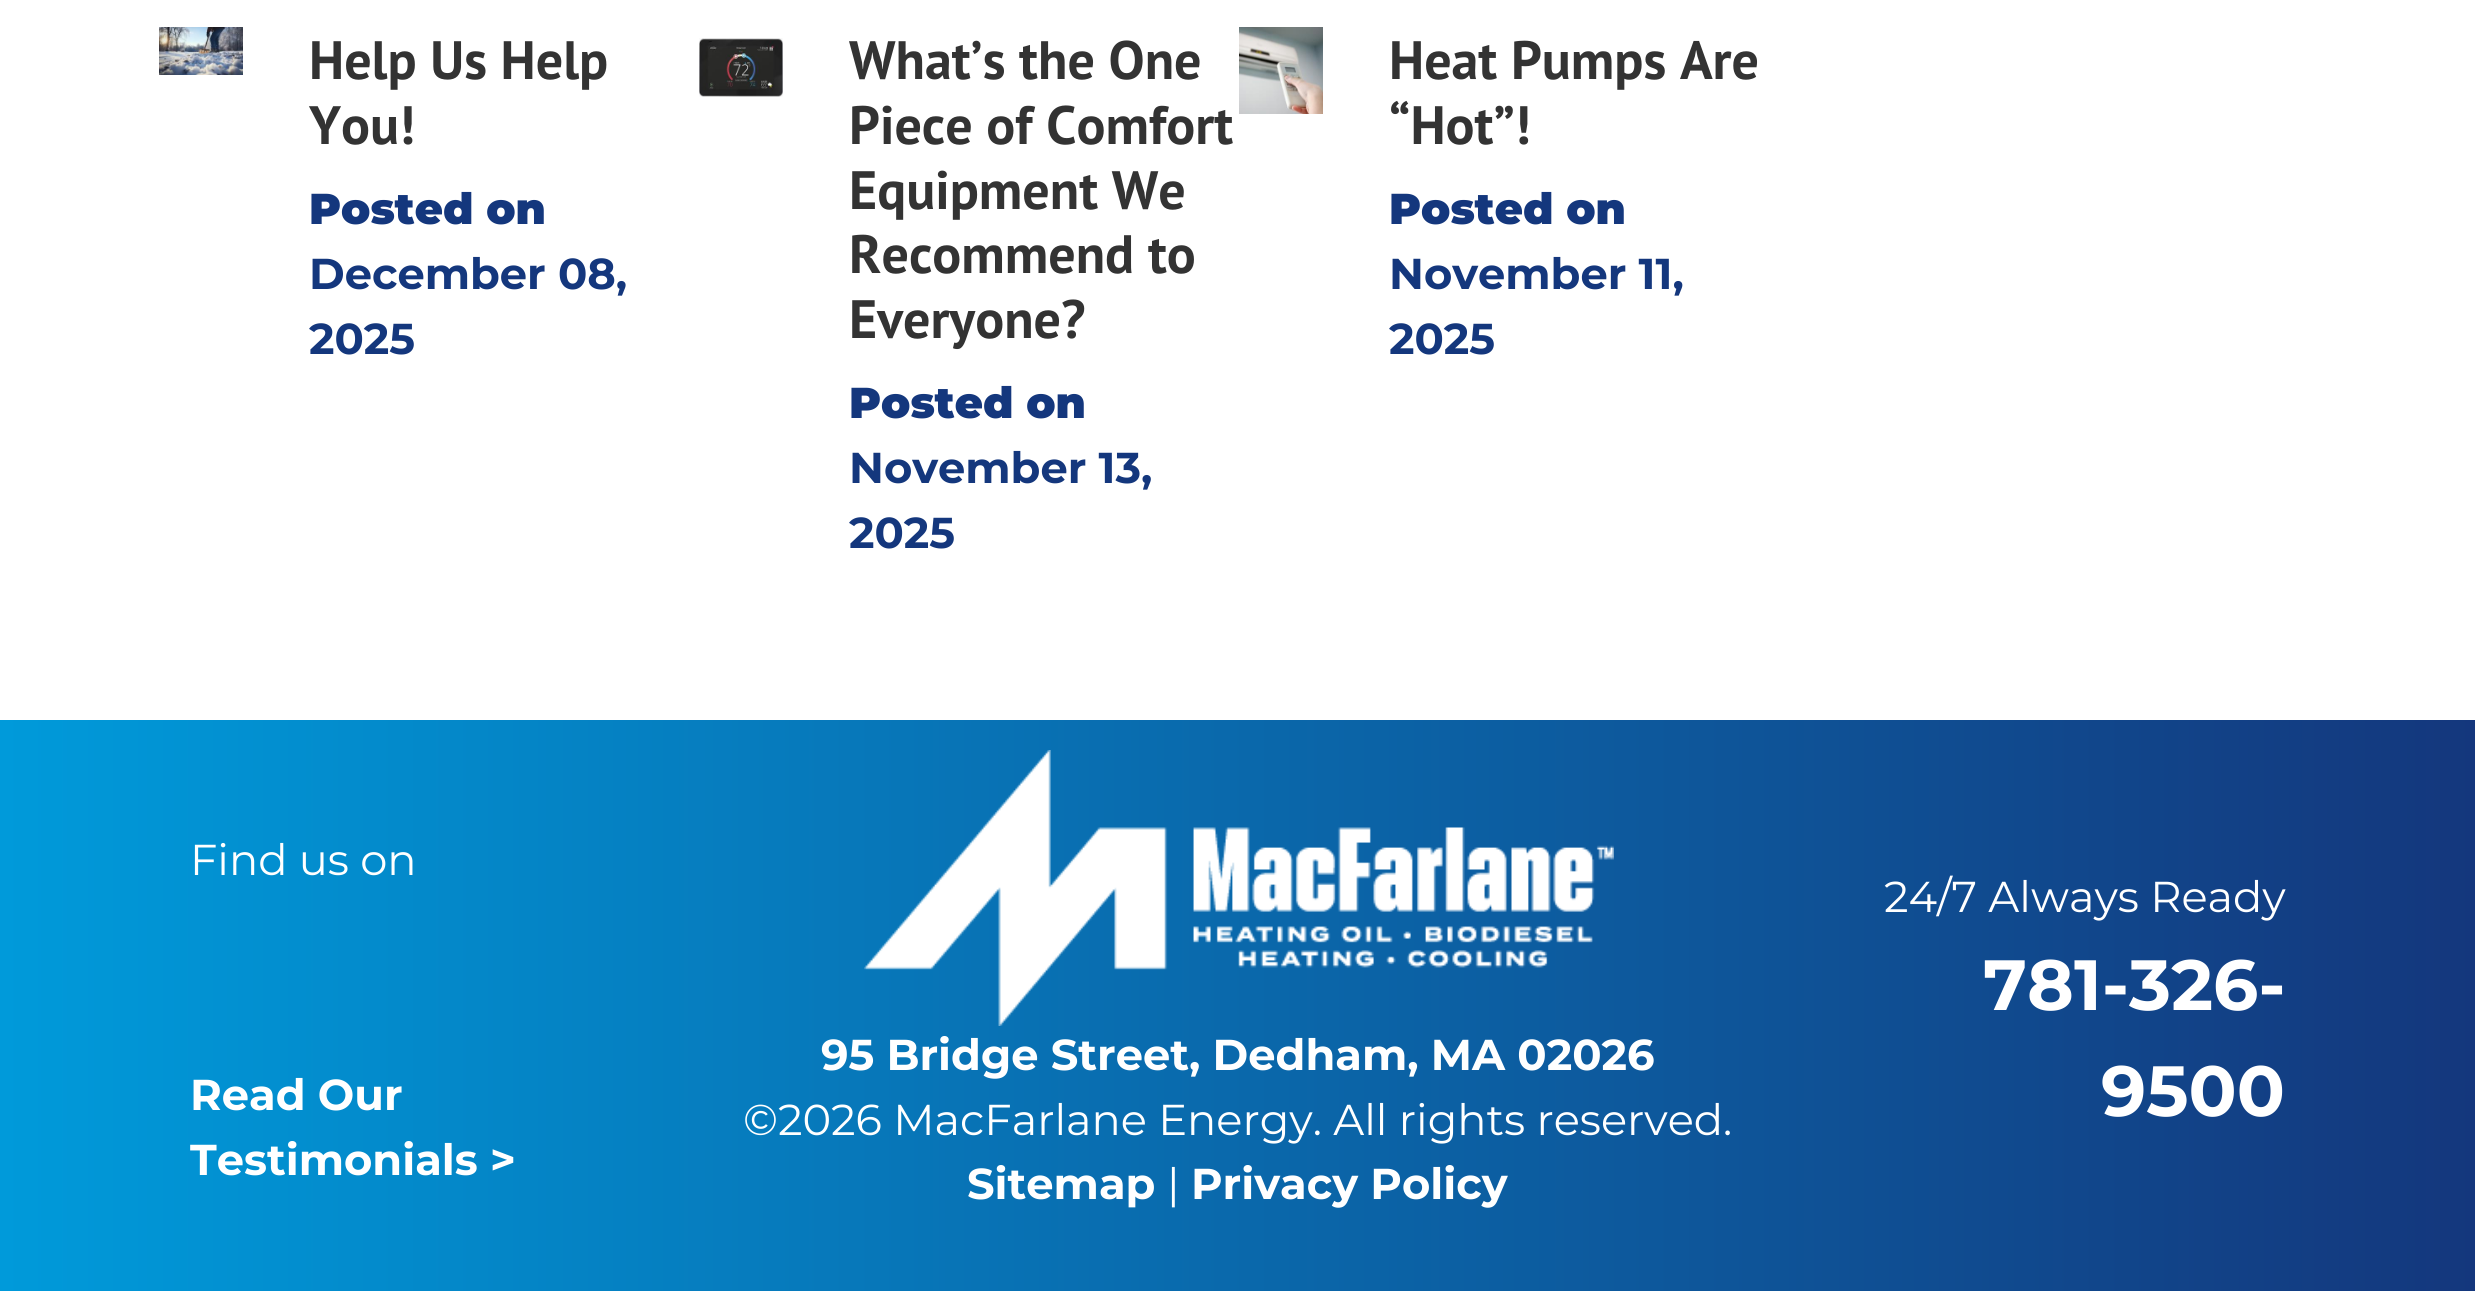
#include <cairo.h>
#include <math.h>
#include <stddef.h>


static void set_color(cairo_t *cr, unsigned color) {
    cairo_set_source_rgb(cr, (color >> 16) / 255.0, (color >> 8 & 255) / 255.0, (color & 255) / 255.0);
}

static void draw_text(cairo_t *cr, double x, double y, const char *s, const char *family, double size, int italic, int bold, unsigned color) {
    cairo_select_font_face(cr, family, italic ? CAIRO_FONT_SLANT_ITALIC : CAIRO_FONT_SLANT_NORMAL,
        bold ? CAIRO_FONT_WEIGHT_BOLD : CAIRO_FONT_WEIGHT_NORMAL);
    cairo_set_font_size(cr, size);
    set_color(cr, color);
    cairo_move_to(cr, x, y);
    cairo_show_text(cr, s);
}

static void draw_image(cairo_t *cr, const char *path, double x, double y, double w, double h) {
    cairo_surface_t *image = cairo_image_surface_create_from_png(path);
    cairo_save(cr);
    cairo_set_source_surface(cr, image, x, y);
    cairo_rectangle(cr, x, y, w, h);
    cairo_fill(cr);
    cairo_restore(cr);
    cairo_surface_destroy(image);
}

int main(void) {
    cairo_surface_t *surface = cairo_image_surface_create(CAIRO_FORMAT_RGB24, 2475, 1291);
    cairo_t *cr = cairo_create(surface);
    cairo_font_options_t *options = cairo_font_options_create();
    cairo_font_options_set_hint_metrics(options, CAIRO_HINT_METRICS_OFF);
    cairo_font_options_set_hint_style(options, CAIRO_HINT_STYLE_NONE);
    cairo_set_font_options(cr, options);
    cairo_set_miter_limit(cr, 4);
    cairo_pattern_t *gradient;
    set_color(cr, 0xFFFFFF);
    cairo_paint(cr);
    draw_image(cr, "assets/img1.png", 159, 27, 84, 48);
    draw_text(cr, 309, 79, "Help Us Help", "PT Sans", 54, 0, 1, 0x333333);
    draw_text(cr, 309, 144, "You!", "PT Sans", 54, 0, 1, 0x333333);
    draw_text(cr, 309, 224, "Posted on", "Montserrat Black", 43.2, 0, 0, 0x14377D);
    draw_text(cr, 309, 289, "December 08,", "Montserrat", 43.2, 0, 1, 0x14377D);
    draw_text(cr, 309, 354, "2025", "Montserrat", 43.2, 0, 1, 0x14377D);
    draw_image(cr, "assets/img2.png", 699, 38, 84, 59);
    draw_text(cr, 849, 79, "What’s the One", "PT Sans", 54, 0, 1, 0x333333);
    draw_text(cr, 849, 144, "Piece of Comfort", "PT Sans", 54, 0, 1, 0x333333);
    draw_text(cr, 849, 209, "Equipment We", "PT Sans", 54, 0, 1, 0x333333);
    draw_text(cr, 849, 273, "Recommend to", "PT Sans", 54, 0, 1, 0x333333);
    draw_text(cr, 849, 338, "Everyone?", "PT Sans", 54, 0, 1, 0x333333);
    draw_text(cr, 849, 418, "Posted on", "Montserrat Black", 43.2, 0, 0, 0x14377D);
    draw_text(cr, 849, 483, "November 13,", "Montserrat", 43.2, 0, 1, 0x14377D);
    draw_text(cr, 849, 548, "2025", "Montserrat", 43.2, 0, 1, 0x14377D);
    draw_image(cr, "assets/img3.png", 1239, 27, 84, 87);
    draw_text(cr, 1389, 79, "Heat Pumps Are", "PT Sans", 54, 0, 1, 0x333333);
    draw_text(cr, 1389, 144, "“Hot”!", "PT Sans", 54, 0, 1, 0x333333);
    draw_text(cr, 1389, 224, "Posted on", "Montserrat Black", 43.2, 0, 0, 0x14377D);
    draw_text(cr, 1389, 289, "November 11,", "Montserrat", 43.2, 0, 1, 0x14377D);
    draw_text(cr, 1389, 354, "2025", "Montserrat", 43.2, 0, 1, 0x14377D);
    gradient = cairo_pattern_create_linear(0, 1007, 2475, 1007);
    cairo_pattern_add_color_stop_rgba(gradient, 0, 0, 0.604, 0.855, 1);
    cairo_pattern_add_color_stop_rgba(gradient, 1, 0.078, 0.216, 0.49, 1);
    cairo_set_source(cr, gradient);
    cairo_pattern_destroy(gradient);
    cairo_rectangle(cr, 0, 720, 2475, 571);
    cairo_fill(cr);
    draw_text(cr, 190, 875, "Find us on", "Montserrat", 43.2, 0, 0, 0xFFFFFF);
    draw_text(cr, 190, 1110, "Read Our", "Montserrat", 43.2, 0, 1, 0xFFFFFF);
    draw_text(cr, 190, 1175, "Testimonials >", "Montserrat", 43.2, 0, 1, 0xFFFFFF);
    draw_image(cr, "assets/img4.png", 864, 750, 750, 276);
    draw_text(cr, 821, 1070, "95 Bridge Street, Dedham, MA 02026", "Montserrat", 43.2, 0, 1, 0xFFFFFF);
    draw_text(cr, 743, 1135, "©2026 MacFarlane Energy. All rights reserved.", "Montserrat", 43.2, 0, 0, 0xFFFFFF);
    draw_text(cr, 967, 1199, "Sitemap", "Montserrat", 43.2, 0, 1, 0xFFFFFF);
    draw_text(cr, 1167, 1199, "|", "Montserrat", 43.2, 0, 0, 0xFFFFFF);
    draw_text(cr, 1191, 1199, "Privacy Policy", "Montserrat", 43.2, 0, 1, 0xFFFFFF);
    draw_text(cr, 1884, 912, "24/7 Always Ready", "Montserrat", 43.2, 0, 0, 0xFFFFFF);
    draw_text(cr, 1983, 1010, "781-326-", "Montserrat", 71, 0, 1, 0xFFFFFF);
    draw_text(cr, 2101, 1116, "9500", "Montserrat", 71, 0, 1, 0xFFFFFF);
    cairo_surface_write_to_png(surface, "output.png");
    cairo_font_options_destroy(options);
    cairo_destroy(cr);
    cairo_surface_destroy(surface);
    return 0;
}
